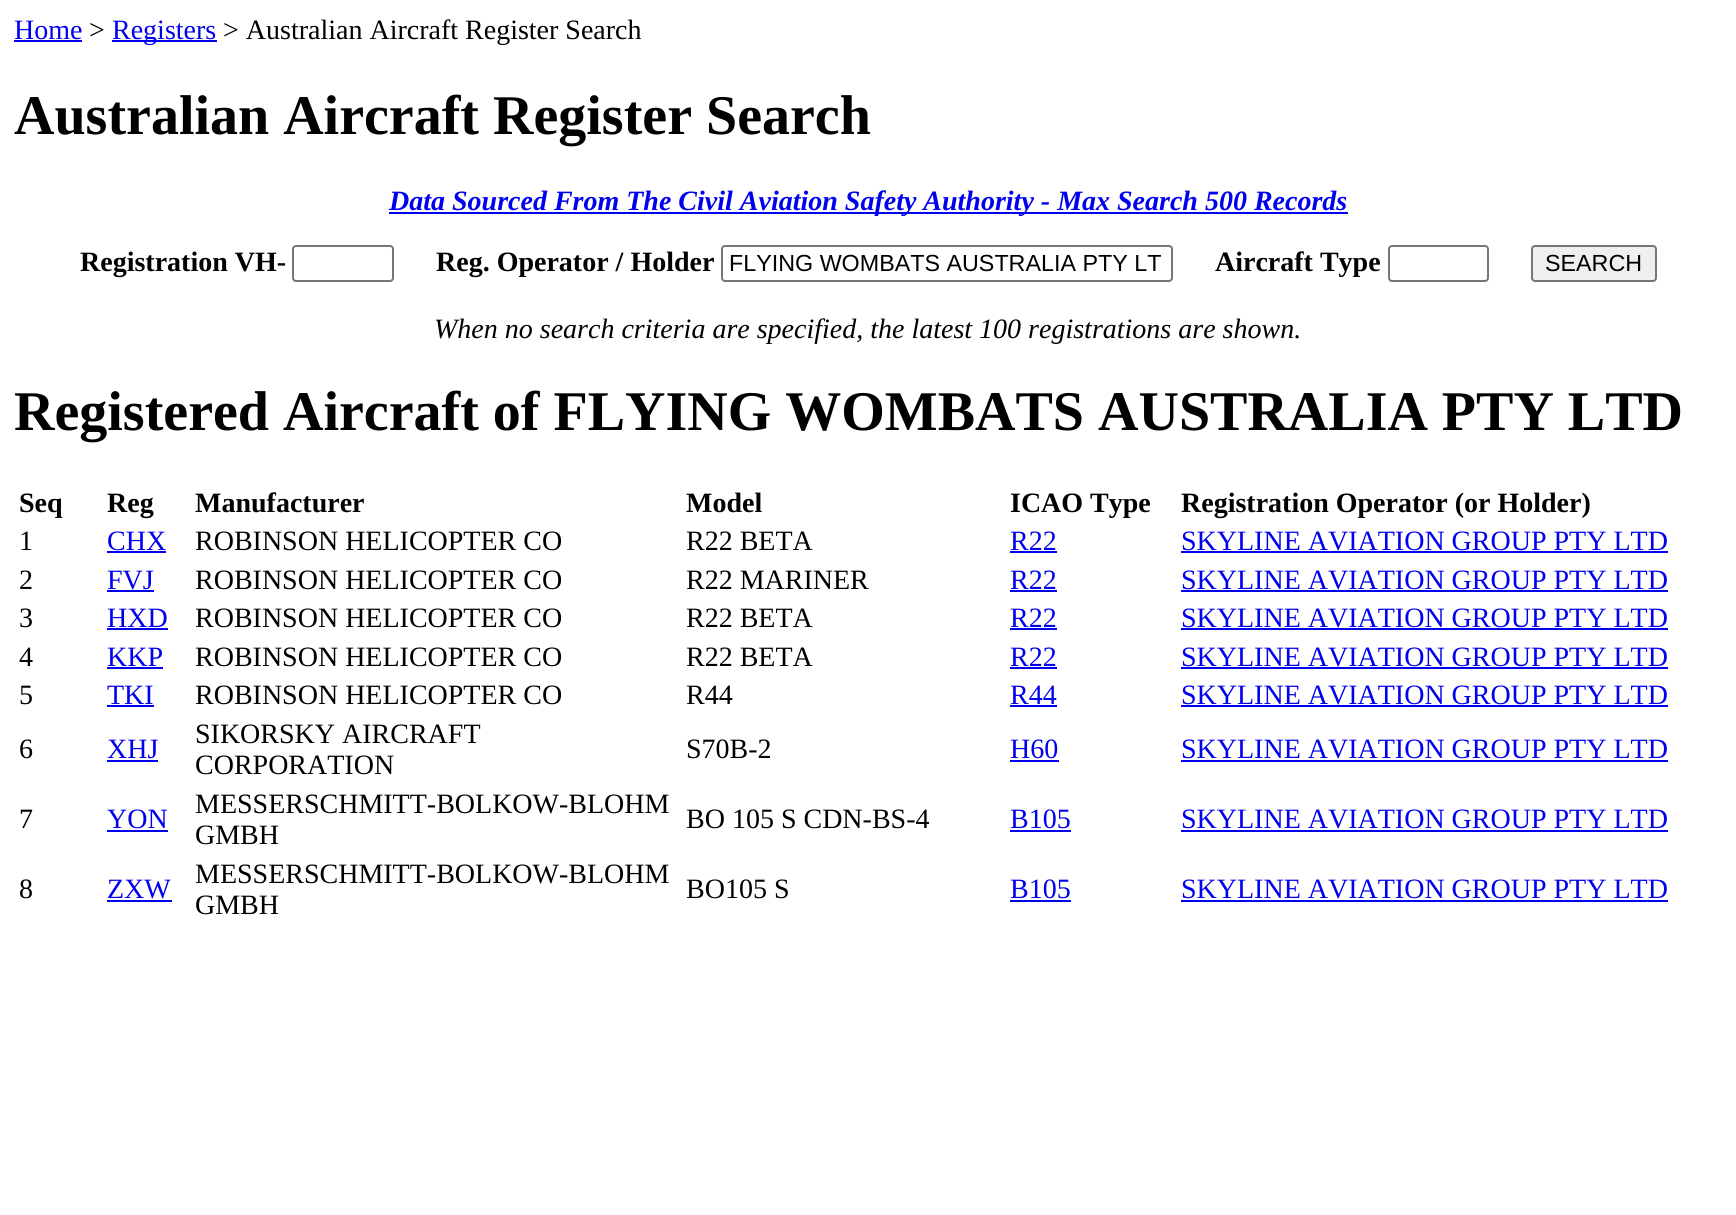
#include <cairo.h>
#include <math.h>
#include <stddef.h>


static void set_color(cairo_t *cr, unsigned color) {
    cairo_set_source_rgb(cr, (color >> 16) / 255.0, (color >> 8 & 255) / 255.0, (color & 255) / 255.0);
}

static void draw_text(cairo_t *cr, double x, double y, const char *s, const char *family, double size, int italic, int bold, unsigned color) {
    cairo_select_font_face(cr, family, italic ? CAIRO_FONT_SLANT_ITALIC : CAIRO_FONT_SLANT_NORMAL,
        bold ? CAIRO_FONT_WEIGHT_BOLD : CAIRO_FONT_WEIGHT_NORMAL);
    cairo_set_font_size(cr, size);
    set_color(cr, color);
    cairo_move_to(cr, x, y);
    cairo_show_text(cr, s);
}

static void fill_rect(cairo_t *cr, double x, double y, double w, double h, unsigned color) {
    set_color(cr, color);
    cairo_rectangle(cr, x, y, w, h);
    cairo_fill(cr);
}

static void rounded_rect(cairo_t *cr, double x, double y, double w, double h, double r) {
    cairo_new_sub_path(cr);
    cairo_arc(cr, x + w - r, y + h - r, r, 0, M_PI / 2);
    cairo_arc(cr, x + r, y + h - r, r, M_PI / 2, M_PI);
    cairo_arc(cr, x + r, y + r, r, M_PI, 1.5 * M_PI);
    cairo_arc(cr, x + w - r, y + r, r, 1.5 * M_PI, 2 * M_PI);
    cairo_close_path(cr);
}

int main(void) {
    cairo_surface_t *surface = cairo_image_surface_create(CAIRO_FORMAT_RGB24, 1736, 1215);
    cairo_t *cr = cairo_create(surface);
    cairo_font_options_t *options = cairo_font_options_create();
    cairo_font_options_set_hint_metrics(options, CAIRO_HINT_METRICS_OFF);
    cairo_font_options_set_hint_style(options, CAIRO_HINT_STYLE_NONE);
    cairo_set_font_options(cr, options);
    cairo_set_miter_limit(cr, 4);
    set_color(cr, 0xFFFFFF);
    cairo_paint(cr);
    draw_text(cr, 14, 39, "Home", "Liberation Serif", 28, 0, 0, 0x0000EE);
    fill_rect(cr, 14, 40, 68, 2, 0x0000EE);
    draw_text(cr, 89, 39, ">", "Liberation Serif", 28, 0, 0, 0x000000);
    fill_rect(cr, 112, 40, 105, 2, 0x0000EE);
    draw_text(cr, 112, 39, "Registers", "Liberation Serif", 28, 0, 0, 0x0000EE);
    draw_text(cr, 223, 39, "> Australian Aircraft Register Search", "Liberation Serif", 28, 0, 0, 0x000000);
    draw_text(cr, 14, 134, "Australian Aircraft Register Search", "Liberation Serif", 56, 0, 1, 0x000000);
    fill_rect(cr, 389, 212, 959, 2, 0x0000EE);
    draw_text(cr, 389, 210, "Data Sourced From The Civil Aviation Safety Authority - Max Search 500 Records", "Liberation Serif", 28, 1, 1, 0x0000EE);
    draw_text(cr, 80, 271, "Registration VH-", "Liberation Serif", 28, 0, 1, 0x000000);
    rounded_rect(cr, 293, 246, 100, 35, 3);
    set_color(cr, 0x767676);
    cairo_stroke(cr);
    draw_text(cr, 436, 271, "Reg. Operator / Holder", "Liberation Serif", 28, 0, 1, 0x000000);
    rounded_rect(cr, 722, 246, 450, 35, 3);
    set_color(cr, 0x767676);
    cairo_stroke(cr);
    draw_text(cr, 729, 271, "FLYING WOMBATS AUSTRALIA PTY LT", "Liberation Sans", 23.3, 0, 0, 0x000000);
    draw_text(cr, 1215, 271, "Aircraft Type", "Liberation Serif", 28, 0, 1, 0x000000);
    rounded_rect(cr, 1389, 246, 99, 35, 3);
    set_color(cr, 0x767676);
    cairo_stroke(cr);
    set_color(cr, 0xEFEFEF);
    rounded_rect(cr, 1532, 246, 124, 35, 3);
    cairo_fill_preserve(cr);
    set_color(cr, 0x767676);
    cairo_stroke(cr);
    draw_text(cr, 1545, 271, "SEARCH", "Liberation Sans", 23.3, 0, 0, 0x000000);
    draw_text(cr, 434, 338, "When no search criteria are specified, the latest 100 registrations are shown.", "Liberation Serif", 28, 1, 0, 0x000000);
    draw_text(cr, 14, 430, "Registered Aircraft of FLYING WOMBATS AUSTRALIA PTY LTD", "Liberation Serif", 56, 0, 1, 0x000000);
    draw_text(cr, 19, 512, "Seq", "Liberation Serif", 28, 0, 1, 0x000000);
    draw_text(cr, 107, 512, "Reg", "Liberation Serif", 28, 0, 1, 0x000000);
    draw_text(cr, 195, 512, "Manufacturer", "Liberation Serif", 28, 0, 1, 0x000000);
    draw_text(cr, 686, 512, "Model", "Liberation Serif", 28, 0, 1, 0x000000);
    draw_text(cr, 1010, 512, "ICAO Type", "Liberation Serif", 28, 0, 1, 0x000000);
    draw_text(cr, 1181, 512, "Registration Operator (or Holder)", "Liberation Serif", 28, 0, 1, 0x000000);
    draw_text(cr, 19, 550, "1", "Liberation Serif", 28, 0, 0, 0x000000);
    draw_text(cr, 107, 550, "CHX", "Liberation Serif", 28, 0, 0, 0x0000EE);
    fill_rect(cr, 107, 551, 59, 2, 0x0000EE);
    draw_text(cr, 195, 550, "ROBINSON HELICOPTER CO", "Liberation Serif", 28, 0, 0, 0x000000);
    draw_text(cr, 686, 550, "R22 BETA", "Liberation Serif", 28, 0, 0, 0x000000);
    draw_text(cr, 1010, 550, "R22", "Liberation Serif", 28, 0, 0, 0x0000EE);
    fill_rect(cr, 1010, 551, 47, 2, 0x0000EE);
    draw_text(cr, 1181, 550, "SKYLINE AVIATION GROUP PTY LTD", "Liberation Serif", 28, 0, 0, 0x0000EE);
    fill_rect(cr, 1181, 551, 487, 2, 0x0000EE);
    draw_text(cr, 19, 589, "2", "Liberation Serif", 28, 0, 0, 0x000000);
    draw_text(cr, 107, 589, "FVJ", "Liberation Serif", 28, 0, 0, 0x0000EE);
    fill_rect(cr, 107, 590, 47, 2, 0x0000EE);
    draw_text(cr, 195, 589, "ROBINSON HELICOPTER CO", "Liberation Serif", 28, 0, 0, 0x000000);
    draw_text(cr, 686, 589, "R22 MARINER", "Liberation Serif", 28, 0, 0, 0x000000);
    draw_text(cr, 1010, 589, "R22", "Liberation Serif", 28, 0, 0, 0x0000EE);
    fill_rect(cr, 1010, 590, 47, 2, 0x0000EE);
    draw_text(cr, 1181, 589, "SKYLINE AVIATION GROUP PTY LTD", "Liberation Serif", 28, 0, 0, 0x0000EE);
    fill_rect(cr, 1181, 590, 487, 2, 0x0000EE);
    draw_text(cr, 19, 627, "3", "Liberation Serif", 28, 0, 0, 0x000000);
    draw_text(cr, 107, 627, "HXD", "Liberation Serif", 28, 0, 0, 0x0000EE);
    fill_rect(cr, 107, 628, 61, 2, 0x0000EE);
    draw_text(cr, 195, 627, "ROBINSON HELICOPTER CO", "Liberation Serif", 28, 0, 0, 0x000000);
    draw_text(cr, 686, 627, "R22 BETA", "Liberation Serif", 28, 0, 0, 0x000000);
    draw_text(cr, 1010, 627, "R22", "Liberation Serif", 28, 0, 0, 0x0000EE);
    fill_rect(cr, 1010, 628, 47, 2, 0x0000EE);
    draw_text(cr, 1181, 627, "SKYLINE AVIATION GROUP PTY LTD", "Liberation Serif", 28, 0, 0, 0x0000EE);
    fill_rect(cr, 1181, 628, 487, 2, 0x0000EE);
    draw_text(cr, 19, 666, "4", "Liberation Serif", 28, 0, 0, 0x000000);
    draw_text(cr, 107, 666, "KKP", "Liberation Serif", 28, 0, 0, 0x0000EE);
    fill_rect(cr, 107, 667, 56, 2, 0x0000EE);
    draw_text(cr, 195, 666, "ROBINSON HELICOPTER CO", "Liberation Serif", 28, 0, 0, 0x000000);
    draw_text(cr, 686, 666, "R22 BETA", "Liberation Serif", 28, 0, 0, 0x000000);
    draw_text(cr, 1010, 666, "R22", "Liberation Serif", 28, 0, 0, 0x0000EE);
    fill_rect(cr, 1010, 667, 47, 2, 0x0000EE);
    draw_text(cr, 1181, 666, "SKYLINE AVIATION GROUP PTY LTD", "Liberation Serif", 28, 0, 0, 0x0000EE);
    fill_rect(cr, 1181, 667, 487, 2, 0x0000EE);
    draw_text(cr, 19, 704, "5", "Liberation Serif", 28, 0, 0, 0x000000);
    draw_text(cr, 107, 704, "TKI", "Liberation Serif", 28, 0, 0, 0x0000EE);
    fill_rect(cr, 107, 705, 47, 2, 0x0000EE);
    draw_text(cr, 195, 704, "ROBINSON HELICOPTER CO", "Liberation Serif", 28, 0, 0, 0x000000);
    draw_text(cr, 686, 704, "R44", "Liberation Serif", 28, 0, 0, 0x000000);
    draw_text(cr, 1010, 704, "R44", "Liberation Serif", 28, 0, 0, 0x0000EE);
    fill_rect(cr, 1010, 705, 47, 2, 0x0000EE);
    draw_text(cr, 1181, 704, "SKYLINE AVIATION GROUP PTY LTD", "Liberation Serif", 28, 0, 0, 0x0000EE);
    fill_rect(cr, 1181, 705, 487, 2, 0x0000EE);
    draw_text(cr, 19, 758, "6", "Liberation Serif", 28, 0, 0, 0x000000);
    draw_text(cr, 107, 758, "XHJ", "Liberation Serif", 28, 0, 0, 0x0000EE);
    fill_rect(cr, 107, 760, 51, 2, 0x0000EE);
    draw_text(cr, 195, 743, "SIKORSKY AIRCRAFT", "Liberation Serif", 28, 0, 0, 0x000000);
    draw_text(cr, 195, 774, "CORPORATION", "Liberation Serif", 28, 0, 0, 0x000000);
    draw_text(cr, 686, 758, "S70B-2", "Liberation Serif", 28, 0, 0, 0x000000);
    draw_text(cr, 1010, 758, "H60", "Liberation Serif", 28, 0, 0, 0x0000EE);
    fill_rect(cr, 1010, 760, 49, 2, 0x0000EE);
    draw_text(cr, 1181, 758, "SKYLINE AVIATION GROUP PTY LTD", "Liberation Serif", 28, 0, 0, 0x0000EE);
    fill_rect(cr, 1181, 760, 487, 2, 0x0000EE);
    draw_text(cr, 19, 828, "7", "Liberation Serif", 28, 0, 0, 0x000000);
    draw_text(cr, 107, 828, "YON", "Liberation Serif", 28, 0, 0, 0x0000EE);
    fill_rect(cr, 107, 830, 61, 2, 0x0000EE);
    draw_text(cr, 195, 813, "MESSERSCHMITT-BOLKOW-BLOHM", "Liberation Serif", 28, 0, 0, 0x000000);
    draw_text(cr, 195, 844, "GMBH", "Liberation Serif", 28, 0, 0, 0x000000);
    draw_text(cr, 686, 828, "BO 105 S CDN-BS-4", "Liberation Serif", 28, 0, 0, 0x000000);
    draw_text(cr, 1010, 828, "B105", "Liberation Serif", 28, 0, 0, 0x0000EE);
    fill_rect(cr, 1010, 830, 61, 2, 0x0000EE);
    draw_text(cr, 1181, 828, "SKYLINE AVIATION GROUP PTY LTD", "Liberation Serif", 28, 0, 0, 0x0000EE);
    fill_rect(cr, 1181, 830, 487, 2, 0x0000EE);
    draw_text(cr, 19, 898, "8", "Liberation Serif", 28, 0, 0, 0x000000);
    draw_text(cr, 107, 898, "ZXW", "Liberation Serif", 28, 0, 0, 0x0000EE);
    fill_rect(cr, 107, 900, 65, 2, 0x0000EE);
    draw_text(cr, 195, 883, "MESSERSCHMITT-BOLKOW-BLOHM", "Liberation Serif", 28, 0, 0, 0x000000);
    draw_text(cr, 195, 914, "GMBH", "Liberation Serif", 28, 0, 0, 0x000000);
    draw_text(cr, 686, 898, "BO105 S", "Liberation Serif", 28, 0, 0, 0x000000);
    draw_text(cr, 1010, 898, "B105", "Liberation Serif", 28, 0, 0, 0x0000EE);
    fill_rect(cr, 1010, 900, 61, 2, 0x0000EE);
    draw_text(cr, 1181, 898, "SKYLINE AVIATION GROUP PTY LTD", "Liberation Serif", 28, 0, 0, 0x0000EE);
    fill_rect(cr, 1181, 900, 487, 2, 0x0000EE);
    cairo_surface_write_to_png(surface, "output.png");
    cairo_font_options_destroy(options);
    cairo_destroy(cr);
    cairo_surface_destroy(surface);
    return 0;
}
